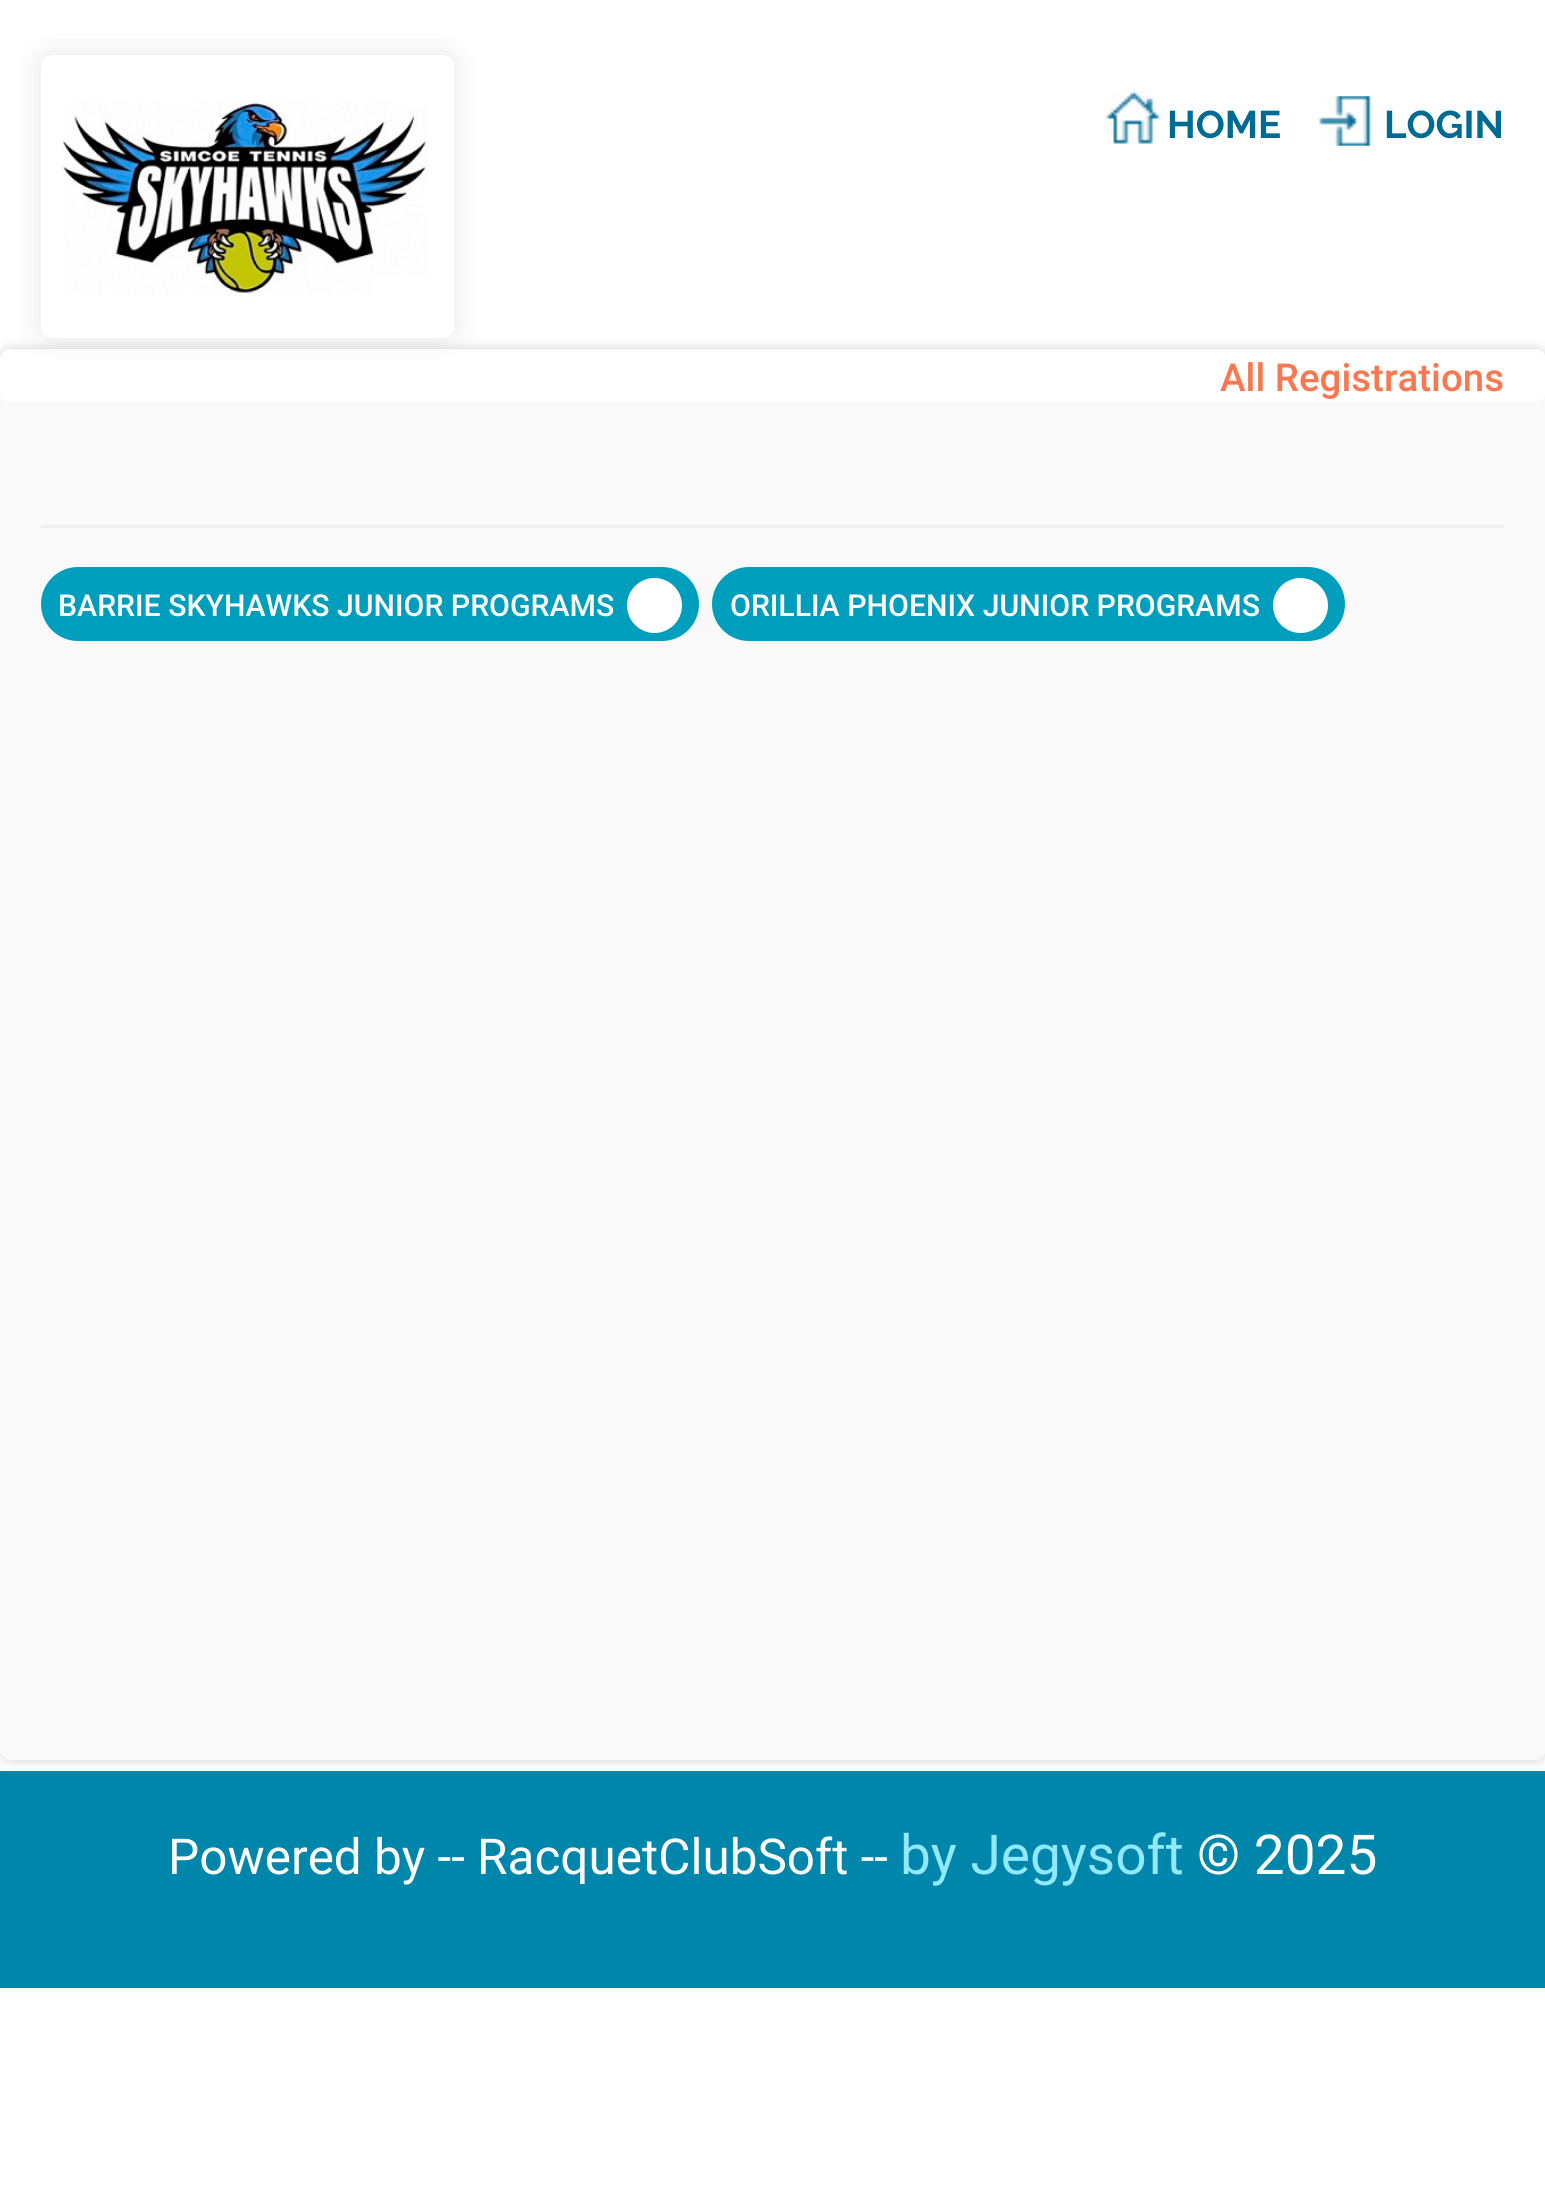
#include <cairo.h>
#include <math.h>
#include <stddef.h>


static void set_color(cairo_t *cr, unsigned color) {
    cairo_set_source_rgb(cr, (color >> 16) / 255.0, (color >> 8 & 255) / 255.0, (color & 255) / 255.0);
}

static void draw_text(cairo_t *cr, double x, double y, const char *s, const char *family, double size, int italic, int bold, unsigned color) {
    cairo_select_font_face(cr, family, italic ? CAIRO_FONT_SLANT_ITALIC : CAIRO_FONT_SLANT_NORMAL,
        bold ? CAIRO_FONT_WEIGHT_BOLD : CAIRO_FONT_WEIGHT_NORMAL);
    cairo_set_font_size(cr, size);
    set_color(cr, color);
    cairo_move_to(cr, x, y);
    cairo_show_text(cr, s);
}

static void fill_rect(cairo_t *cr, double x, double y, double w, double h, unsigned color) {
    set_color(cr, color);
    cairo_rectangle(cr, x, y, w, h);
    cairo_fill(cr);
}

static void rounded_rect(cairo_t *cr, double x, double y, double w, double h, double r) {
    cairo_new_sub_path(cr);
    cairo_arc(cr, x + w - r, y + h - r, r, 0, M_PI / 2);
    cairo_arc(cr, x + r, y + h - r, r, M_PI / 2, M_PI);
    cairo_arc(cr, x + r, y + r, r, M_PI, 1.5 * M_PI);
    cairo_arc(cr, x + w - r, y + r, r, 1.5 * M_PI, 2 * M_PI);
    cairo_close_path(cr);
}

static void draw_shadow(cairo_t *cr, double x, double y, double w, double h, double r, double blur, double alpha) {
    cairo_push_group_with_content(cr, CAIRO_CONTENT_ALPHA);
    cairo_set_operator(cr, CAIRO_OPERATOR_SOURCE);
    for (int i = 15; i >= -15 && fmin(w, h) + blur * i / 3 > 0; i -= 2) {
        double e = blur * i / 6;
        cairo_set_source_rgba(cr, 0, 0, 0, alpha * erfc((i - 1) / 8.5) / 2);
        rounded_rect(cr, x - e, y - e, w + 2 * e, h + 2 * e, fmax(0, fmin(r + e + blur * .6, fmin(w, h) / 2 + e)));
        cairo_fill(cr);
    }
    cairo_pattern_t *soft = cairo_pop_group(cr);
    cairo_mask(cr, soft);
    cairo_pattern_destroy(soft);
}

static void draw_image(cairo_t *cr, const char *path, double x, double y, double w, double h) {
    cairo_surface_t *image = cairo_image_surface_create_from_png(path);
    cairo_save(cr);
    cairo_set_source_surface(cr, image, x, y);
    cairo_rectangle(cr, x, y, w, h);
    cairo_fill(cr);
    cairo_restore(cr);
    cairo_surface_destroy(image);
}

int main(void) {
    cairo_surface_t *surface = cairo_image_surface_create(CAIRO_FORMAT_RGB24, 1545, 2204);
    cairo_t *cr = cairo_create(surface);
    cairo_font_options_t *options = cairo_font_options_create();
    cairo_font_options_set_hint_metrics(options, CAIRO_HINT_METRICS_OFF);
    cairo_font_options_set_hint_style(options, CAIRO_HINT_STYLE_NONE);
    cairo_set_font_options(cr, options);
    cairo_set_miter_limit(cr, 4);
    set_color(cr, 0xFFFFFF);
    cairo_paint(cr);
    set_color(cr, 0x000000);
    draw_shadow(cr, 0, 349, 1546, 1411, 11, 5.5, 0.2);
    set_color(cr, 0xF9F9F9);
    rounded_rect(cr, 0, 349, 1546, 1411, 11);
    cairo_fill(cr);
    set_color(cr, 0xFFFFFF);
    rounded_rect(cr, 0, 349, 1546, 53, 11);
    cairo_fill(cr);
    set_color(cr, 0x000000);
    draw_shadow(cr, 41, 55, 413, 283, 11, 14, 0.1);
    set_color(cr, 0xFFFFFF);
    rounded_rect(cr, 41, 55, 413, 283, 11);
    cairo_fill(cr);
    draw_image(cr, "assets/img1.png", 62, 96, 366, 200);
    draw_image(cr, "assets/img2.png", 1105, 90, 56, 54);
    draw_text(cr, 1167, 138, "HOME", "Raleway", 38.5, 0, 1, 0x016A93);
    draw_image(cr, "assets/img3.png", 1319, 96, 52, 50);
    draw_text(cr, 1384, 138, "LOGIN", "Raleway", 38.5, 0, 1, 0x016A93);
    draw_text(cr, 1220, 391, "All Registrations", "Roboto Medium", 38.5, 0, 0, 0xF97850);
    fill_rect(cr, 41, 525, 1463, 3, 0xEEEEEE);
    set_color(cr, 0x009EBD);
    rounded_rect(cr, 41, 567, 658, 74, 37);
    cairo_fill(cr);
    draw_text(cr, 58, 616, "BARRIE SKYHAWKS JUNIOR PROGRAMS", "Roboto Medium", 30.25, 0, 0, 0xFFFFFF);
    cairo_new_path(cr);
    cairo_arc(cr, 654.5, 605.5, 27.5, 0, 2 * M_PI);
    cairo_fill(cr);
    set_color(cr, 0x009EBD);
    rounded_rect(cr, 712, 567, 633, 74, 37);
    cairo_fill(cr);
    draw_text(cr, 730, 616, "ORILLIA PHOENIX JUNIOR PROGRAMS", "Roboto Medium", 30.25, 0, 0, 0xFFFFFF);
    cairo_new_path(cr);
    cairo_arc(cr, 1300.5, 605.5, 27.5, 0, 2 * M_PI);
    cairo_fill(cr);
    fill_rect(cr, 0, 1771, 1545, 217, 0x0086AA);
    draw_text(cr, 168, 1874, "Powered by -- RacquetClubSoft --", "Roboto", 49.5, 0, 0, 0xFFFFFF);
    draw_text(cr, 900, 1874, "by Jegysoft", "Roboto", 55, 0, 0, 0x92E8FF);
    draw_text(cr, 1197, 1874, "© 2025", "Roboto", 55, 0, 0, 0xFFFFFF);
    cairo_surface_write_to_png(surface, "output.png");
    cairo_font_options_destroy(options);
    cairo_destroy(cr);
    cairo_surface_destroy(surface);
    return 0;
}
